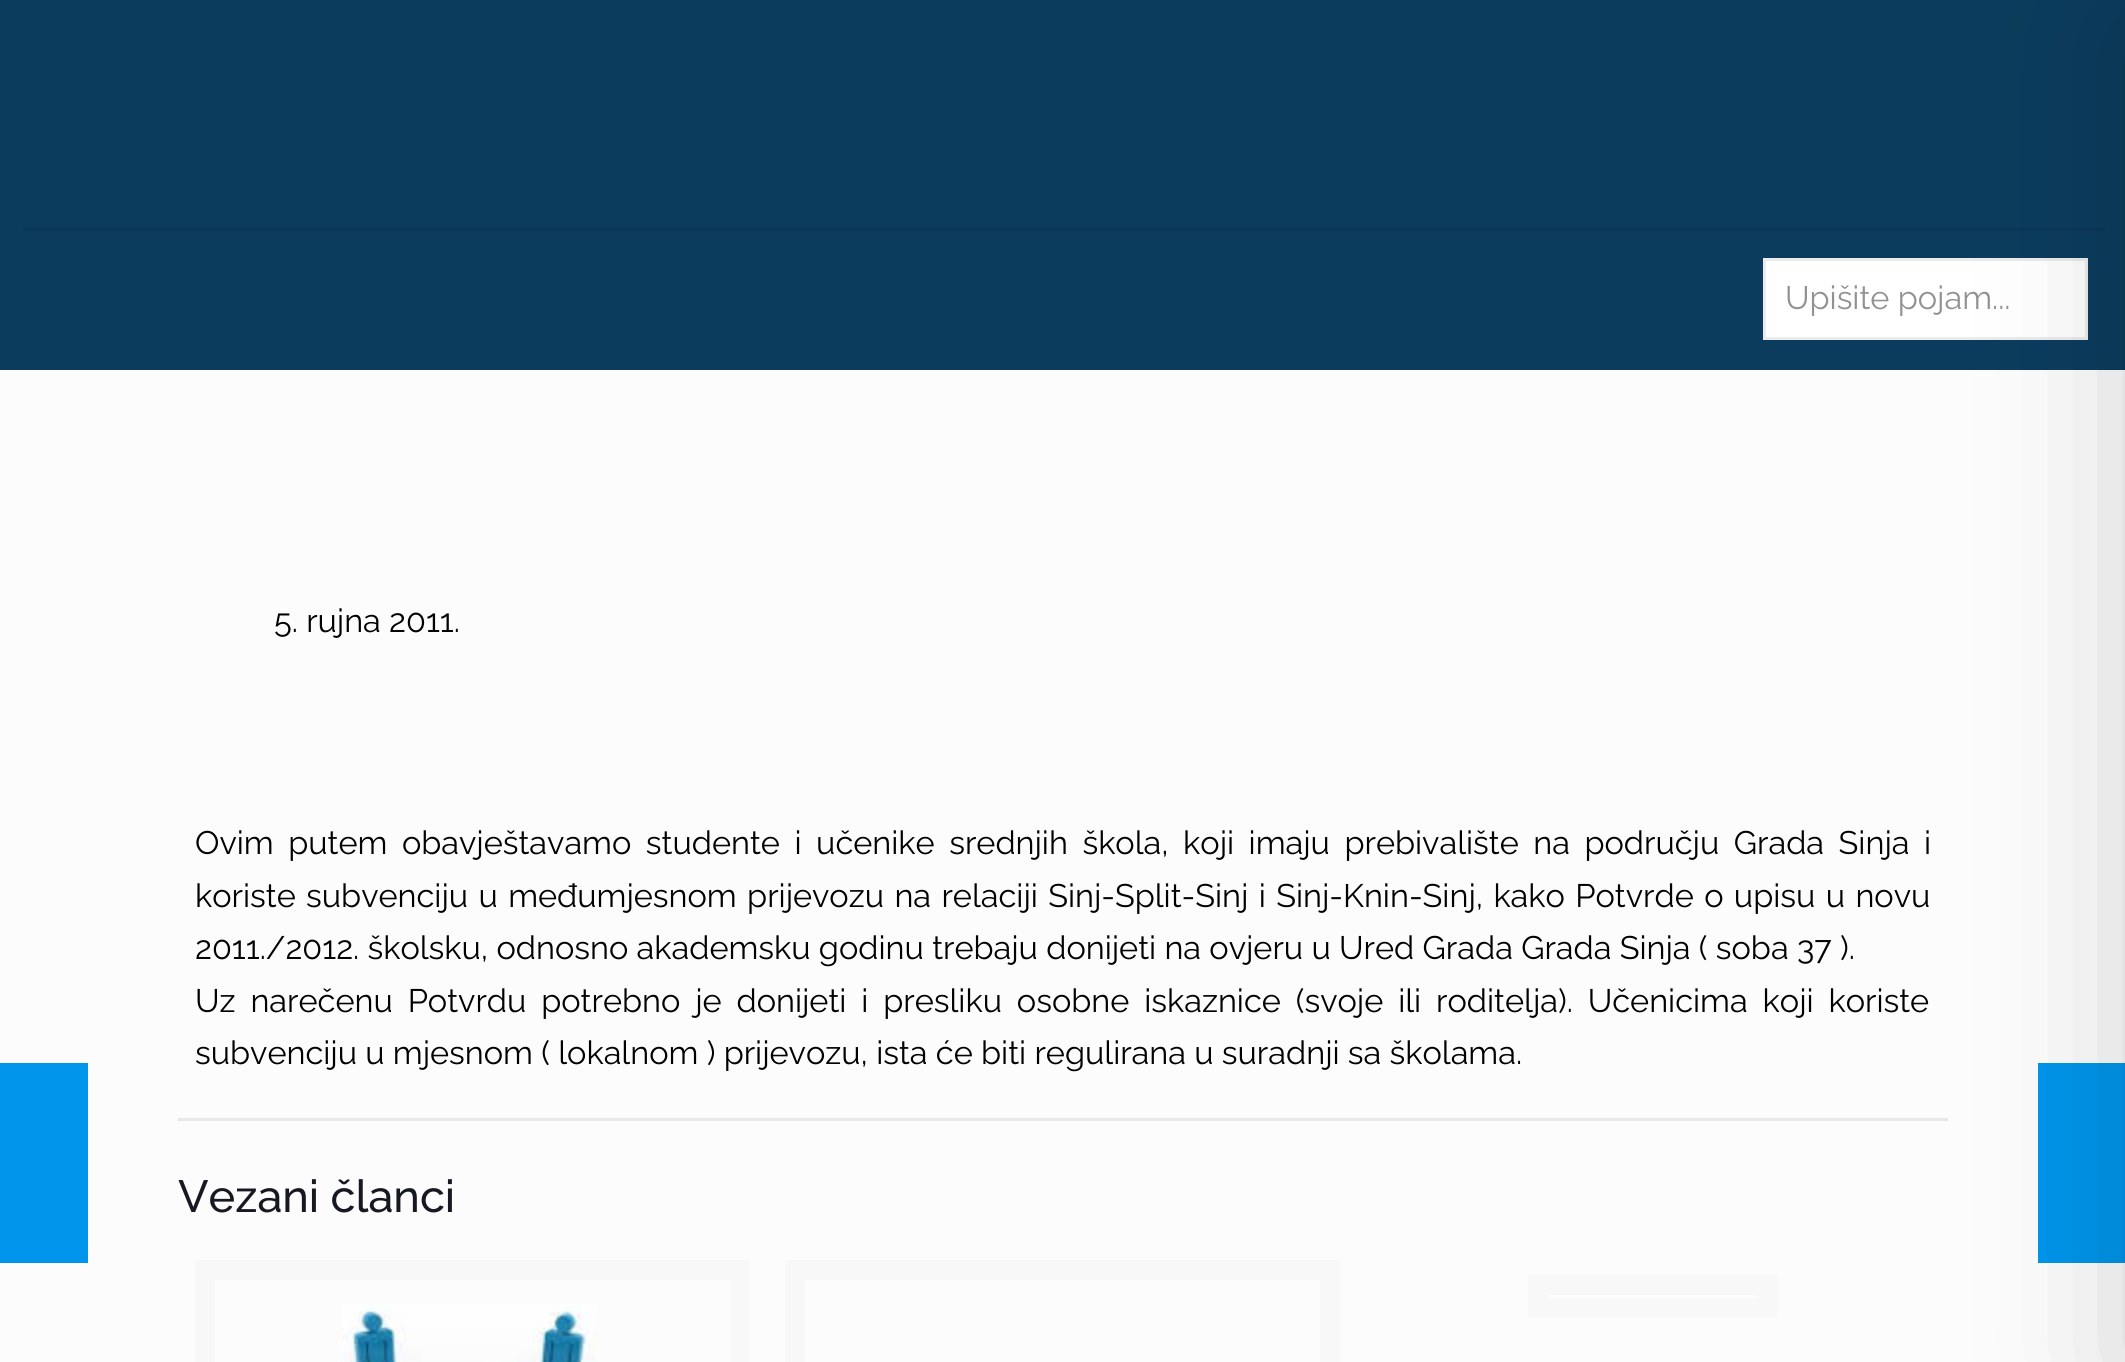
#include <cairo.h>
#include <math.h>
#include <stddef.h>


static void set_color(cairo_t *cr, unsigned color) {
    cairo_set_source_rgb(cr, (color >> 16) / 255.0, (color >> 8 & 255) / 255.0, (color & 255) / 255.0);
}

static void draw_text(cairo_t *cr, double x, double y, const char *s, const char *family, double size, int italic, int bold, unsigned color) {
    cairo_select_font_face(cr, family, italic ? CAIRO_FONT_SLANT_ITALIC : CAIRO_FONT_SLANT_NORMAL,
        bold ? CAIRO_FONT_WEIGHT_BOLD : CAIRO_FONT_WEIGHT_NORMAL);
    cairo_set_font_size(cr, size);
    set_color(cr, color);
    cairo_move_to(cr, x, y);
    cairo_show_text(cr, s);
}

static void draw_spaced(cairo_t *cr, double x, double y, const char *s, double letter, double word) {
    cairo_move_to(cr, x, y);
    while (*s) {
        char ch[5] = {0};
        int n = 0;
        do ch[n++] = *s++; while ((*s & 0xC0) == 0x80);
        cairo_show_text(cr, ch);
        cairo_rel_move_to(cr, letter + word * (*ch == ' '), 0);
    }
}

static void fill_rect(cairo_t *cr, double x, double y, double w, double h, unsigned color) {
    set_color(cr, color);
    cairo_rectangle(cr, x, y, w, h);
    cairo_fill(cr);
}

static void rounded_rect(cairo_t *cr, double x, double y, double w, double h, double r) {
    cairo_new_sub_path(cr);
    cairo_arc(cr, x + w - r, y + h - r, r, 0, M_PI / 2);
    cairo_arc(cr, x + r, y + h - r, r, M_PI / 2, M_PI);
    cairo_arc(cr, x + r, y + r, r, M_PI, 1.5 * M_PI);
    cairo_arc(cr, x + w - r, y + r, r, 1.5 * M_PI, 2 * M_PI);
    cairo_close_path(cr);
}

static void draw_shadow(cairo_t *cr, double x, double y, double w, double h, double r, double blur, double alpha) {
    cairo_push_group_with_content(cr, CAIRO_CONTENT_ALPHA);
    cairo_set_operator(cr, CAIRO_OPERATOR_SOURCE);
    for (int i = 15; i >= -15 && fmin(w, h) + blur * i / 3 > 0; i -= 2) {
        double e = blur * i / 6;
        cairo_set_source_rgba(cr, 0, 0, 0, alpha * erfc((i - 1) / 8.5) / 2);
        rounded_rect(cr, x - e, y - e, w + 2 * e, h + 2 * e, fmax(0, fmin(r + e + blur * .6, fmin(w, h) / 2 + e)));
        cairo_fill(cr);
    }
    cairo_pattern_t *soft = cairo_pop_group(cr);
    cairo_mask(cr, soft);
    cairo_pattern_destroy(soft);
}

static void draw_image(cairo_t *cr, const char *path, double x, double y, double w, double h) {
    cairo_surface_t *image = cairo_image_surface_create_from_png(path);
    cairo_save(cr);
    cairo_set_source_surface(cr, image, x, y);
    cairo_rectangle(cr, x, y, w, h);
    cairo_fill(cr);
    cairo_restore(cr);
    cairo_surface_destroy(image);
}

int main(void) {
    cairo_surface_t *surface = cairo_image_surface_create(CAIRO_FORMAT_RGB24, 2125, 1362);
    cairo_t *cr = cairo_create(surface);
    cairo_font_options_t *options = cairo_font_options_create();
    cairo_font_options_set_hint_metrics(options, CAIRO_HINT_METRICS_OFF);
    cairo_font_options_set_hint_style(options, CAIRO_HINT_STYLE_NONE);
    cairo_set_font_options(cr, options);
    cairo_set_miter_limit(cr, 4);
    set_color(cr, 0xFCFCFC);
    cairo_paint(cr);
    fill_rect(cr, 0, 1063, 88, 200, 0x0095EB);
    fill_rect(cr, 0, 0, 2125, 370, 0x0B3C5D);
    fill_rect(cr, 23, 228, 2082, 3, 0x0A3756);
    set_color(cr, 0xFFFFFF);
    cairo_rectangle(cr, 1764.5, 259.5, 322, 79);
    cairo_fill_preserve(cr);
    set_color(cr, 0xEBEBEB);
    cairo_set_line_width(cr, 3);
    cairo_stroke(cr);
    draw_text(cr, 1785, 309, "Upišite pojam...", "Raleway", 32.5, 0, 0, 0x929292);
    draw_text(cr, 274, 632, "5. rujna 2011.", "Raleway", 32.5, 0, 0, 0x000000);
    draw_spaced(cr, 195, 854, "Ovim putem obavještavamo studente i učenike srednjih škola, koji imaju prebivalište na području Grada Sinja i", 0, 6.25);
    draw_spaced(cr, 195, 907, "koriste subvenciju u međumjesnom prijevozu na relaciji Sinj-Split-Sinj i Sinj-Knin-Sinj, kako Potvrde o upisu u novu", 0, 2.1);
    draw_text(cr, 195, 959, "2011./2012. školsku, odnosno akademsku godinu trebaju donijeti na ovjeru u Ured Grada Grada Sinja ( soba 37 ).", "Raleway", 32.5, 0, 0, 0x000000);
    draw_spaced(cr, 195, 1012, "Uz narečenu Potvrdu potrebno je donijeti i presliku osobne iskaznice (svoje ili roditelja). Učenicima koji koriste", 0, 6.6);
    draw_text(cr, 195, 1064, "subvenciju u mjesnom ( lokalnom ) prijevozu, ista će biti regulirana u suradnji sa školama.", "Raleway", 32.5, 0, 0, 0x000000);
    fill_rect(cr, 178, 1118, 1770, 3, 0xE8E8E8);
    draw_text(cr, 178, 1212, "Vezani članci", "Raleway Medium", 45, 0, 0, 0x161922);
    cairo_rectangle(cr, 205, 1270, 535, 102);
    set_color(cr, 0xF8F8F8);
    cairo_set_line_width(cr, 20);
    cairo_stroke(cr);
    draw_image(cr, "assets/img1.png", 342, 1304, 255, 58);
    cairo_rectangle(cr, 795, 1270, 535, 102);
    cairo_stroke(cr);
    cairo_rectangle(cr, 1538, 1285, 230, 23);
    cairo_stroke(cr);
    fill_rect(cr, 2038, 1063, 87, 200, 0x0095EB);
    set_color(cr, 0x000000);
    draw_shadow(cr, 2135, 25, 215, 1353, 0, 75, 0.2);
    cairo_surface_write_to_png(surface, "output.png");
    cairo_font_options_destroy(options);
    cairo_destroy(cr);
    cairo_surface_destroy(surface);
    return 0;
}
